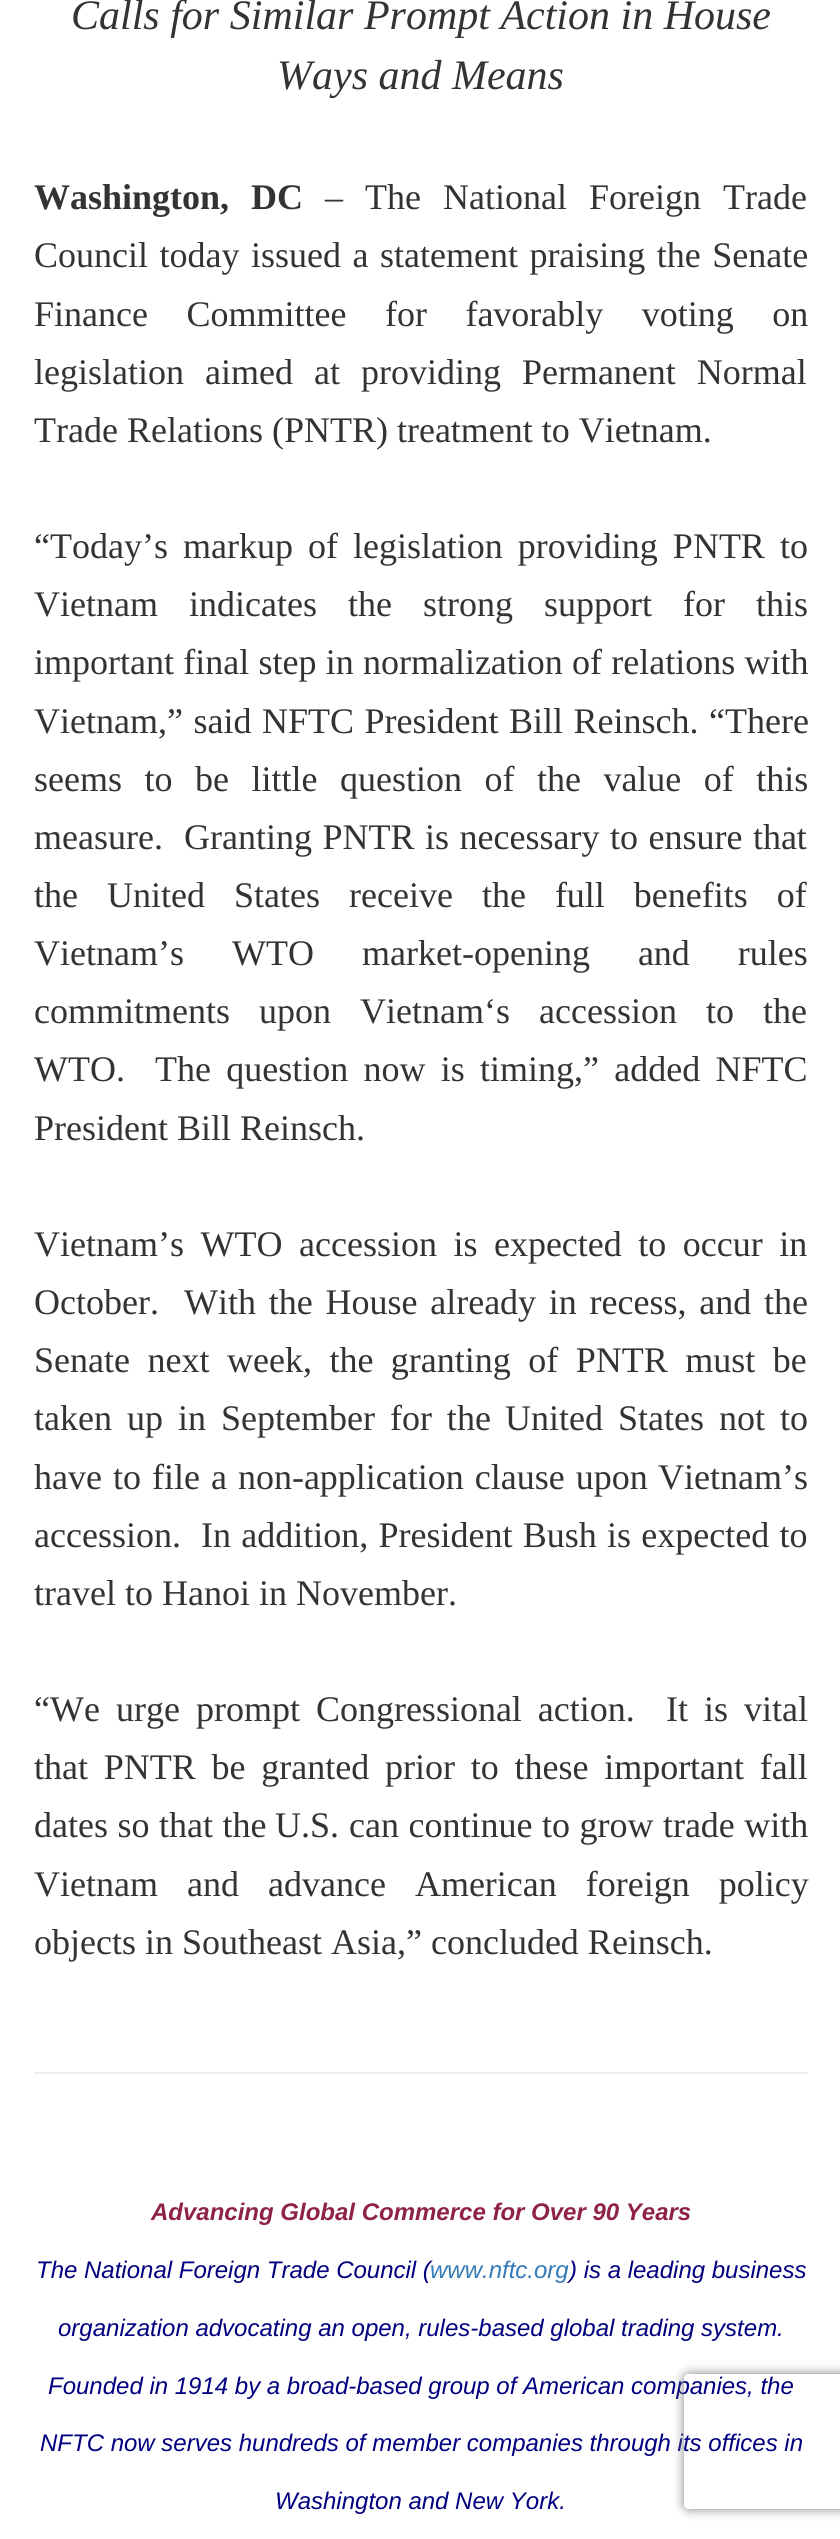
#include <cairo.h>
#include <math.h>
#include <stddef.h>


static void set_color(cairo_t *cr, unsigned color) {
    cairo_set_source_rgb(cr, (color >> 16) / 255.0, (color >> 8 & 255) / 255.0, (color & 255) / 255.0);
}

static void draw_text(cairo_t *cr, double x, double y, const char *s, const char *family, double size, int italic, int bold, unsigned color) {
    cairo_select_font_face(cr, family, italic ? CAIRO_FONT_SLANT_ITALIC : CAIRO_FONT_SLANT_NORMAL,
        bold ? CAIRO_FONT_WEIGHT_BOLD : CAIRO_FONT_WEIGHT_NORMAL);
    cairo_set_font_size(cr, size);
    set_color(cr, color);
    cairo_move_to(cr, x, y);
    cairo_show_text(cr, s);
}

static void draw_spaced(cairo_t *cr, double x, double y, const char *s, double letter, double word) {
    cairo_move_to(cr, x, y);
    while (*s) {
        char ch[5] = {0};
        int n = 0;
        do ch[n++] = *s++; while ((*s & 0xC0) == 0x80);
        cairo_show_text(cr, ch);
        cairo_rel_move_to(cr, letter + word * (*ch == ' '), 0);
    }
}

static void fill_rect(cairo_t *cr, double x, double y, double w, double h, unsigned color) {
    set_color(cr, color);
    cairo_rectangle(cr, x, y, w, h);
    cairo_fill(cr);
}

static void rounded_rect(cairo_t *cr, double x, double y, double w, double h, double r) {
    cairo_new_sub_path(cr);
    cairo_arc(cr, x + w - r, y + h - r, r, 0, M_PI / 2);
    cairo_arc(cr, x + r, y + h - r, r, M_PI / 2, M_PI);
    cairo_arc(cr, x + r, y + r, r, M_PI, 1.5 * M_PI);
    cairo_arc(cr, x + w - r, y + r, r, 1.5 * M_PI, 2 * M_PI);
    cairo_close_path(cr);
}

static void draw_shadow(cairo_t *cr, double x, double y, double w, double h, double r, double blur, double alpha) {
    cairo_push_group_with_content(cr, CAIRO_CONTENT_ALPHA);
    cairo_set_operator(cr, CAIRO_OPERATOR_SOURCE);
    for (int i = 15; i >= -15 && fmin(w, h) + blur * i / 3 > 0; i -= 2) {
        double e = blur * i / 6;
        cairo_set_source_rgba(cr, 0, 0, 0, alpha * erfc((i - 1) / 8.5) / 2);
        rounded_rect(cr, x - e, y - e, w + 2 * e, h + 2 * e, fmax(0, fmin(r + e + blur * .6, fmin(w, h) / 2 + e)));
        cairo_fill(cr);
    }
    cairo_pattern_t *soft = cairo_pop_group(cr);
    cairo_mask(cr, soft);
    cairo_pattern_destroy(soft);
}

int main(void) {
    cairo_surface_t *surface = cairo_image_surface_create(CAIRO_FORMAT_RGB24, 840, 2539);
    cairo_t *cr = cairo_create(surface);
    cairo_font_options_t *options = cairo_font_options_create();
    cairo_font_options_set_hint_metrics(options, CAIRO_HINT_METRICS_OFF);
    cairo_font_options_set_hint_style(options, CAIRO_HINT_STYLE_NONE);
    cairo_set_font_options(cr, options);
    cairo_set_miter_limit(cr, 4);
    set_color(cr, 0xFFFFFF);
    cairo_paint(cr);
    draw_text(cr, 71, 29, "Calls for Similar Prompt Action in House", "Liberation Serif", 42, 1, 0, 0x333333);
    draw_text(cr, 277, 89, "Ways and Means", "Liberation Serif", 42, 1, 0, 0x333333);
    draw_text(cr, 34, 209, "Washington,", "Liberation Serif", 36, 0, 1, 0x333333);
    draw_text(cr, 251, 209, "DC", "Liberation Serif", 36, 0, 1, 0x333333);
    cairo_select_font_face(cr, "Liberation Serif", CAIRO_FONT_SLANT_NORMAL, CAIRO_FONT_WEIGHT_NORMAL);
    draw_spaced(cr, 325, 209, "– The National Foreign Trade", 0, 13);
    draw_spaced(cr, 34, 267, "Council today issued a statement praising the Senate", 0, 2.5);
    draw_spaced(cr, 34, 326, "Finance Committee for favorably voting on", 0, 29.5);
    draw_spaced(cr, 34, 384, "legislation aimed at providing Permanent Normal", 0, 12);
    draw_text(cr, 34, 442, "Trade Relations (PNTR) treatment to Vietnam.", "Liberation Serif", 36, 0, 0, 0x333333);
    draw_spaced(cr, 34, 558, "“Today’s markup of legislation providing PNTR to", 0, 6);
    draw_text(cr, 34, 616, "Vietnam", "Liberation Serif", 36, 0, 0, 0x333333);
    draw_spaced(cr, 189, 616, "indicates the strong support for this", 0, 22);
    draw_spaced(cr, 34, 674, "important final step in normalization of relations with", 0, 0.25);
    draw_text(cr, 34, 733, "Vietnam", "Liberation Serif", 36, 0, 0, 0x333333);
    draw_spaced(cr, 158, 733, ",” said NFTC President Bill Reinsch. “There", 0, 1.5);
    draw_spaced(cr, 34, 791, "seems to be little question of the value of this", 0, 13.5);
    draw_text(cr, 34, 849, "measure.", "Liberation Serif", 36, 0, 0, 0x333333);
    draw_spaced(cr, 184, 849, "Granting PNTR is necessary to ensure that", 0, 1.5);
    draw_text(cr, 34, 907, "the", "Liberation Serif", 36, 0, 0, 0x333333);
    draw_spaced(cr, 107, 907, "United States", 0, 20);
    draw_spaced(cr, 349, 907, "receive the full benefits of", 0, 20);
    draw_text(cr, 34, 965, "Vietnam", "Liberation Serif", 36, 0, 0, 0x333333);
    draw_spaced(cr, 158, 965, "’s WTO market-opening and rules", 0, 39);
    draw_spaced(cr, 34, 1023, "commitments upon", 0, 20);
    draw_text(cr, 360, 1023, "Vietnam", "Liberation Serif", 36, 0, 0, 0x333333);
    draw_spaced(cr, 484, 1023, "‘s accession to the", 0, 20);
    draw_text(cr, 34, 1081, "WTO.", "Liberation Serif", 36, 0, 0, 0x333333);
    draw_spaced(cr, 155, 1081, "The question now is timing,” added NFTC", 0, 6.25);
    draw_text(cr, 34, 1140, "President Bill Reinsch.", "Liberation Serif", 36, 0, 0, 0x333333);
    draw_text(cr, 34, 1256, "Vietnam", "Liberation Serif", 36, 0, 0, 0x333333);
    draw_spaced(cr, 158, 1256, "’s WTO accession is expected to occur in", 0, 7.5);
    draw_text(cr, 34, 1314, "October.", "Liberation Serif", 36, 0, 0, 0x333333);
    draw_spaced(cr, 184, 1314, "With the House already in recess, and the", 0, 3.75);
    draw_spaced(cr, 34, 1372, "Senate next week, the granting of PNTR must be", 0, 8.5);
    draw_spaced(cr, 34, 1430, "taken up in September for the", 0, 6);
    draw_spaced(cr, 505, 1430, "United States", 0, 6);
    draw_spaced(cr, 719, 1430, "not to", 0, 6);
    draw_spaced(cr, 34, 1489, "have to file a non-application clause upon", 0, 2);
    draw_text(cr, 658, 1489, "Vietnam’s", "Liberation Serif", 36, 0, 0, 0x333333);
    draw_text(cr, 34, 1547, "accession.", "Liberation Serif", 36, 0, 0, 0x333333);
    draw_spaced(cr, 201, 1547, "In addition, President Bush is expected to", 0, 1.25);
    draw_text(cr, 34, 1605, "travel to Hanoi in November.", "Liberation Serif", 36, 0, 0, 0x333333);
    draw_spaced(cr, 34, 1721, "“We urge prompt Congressional action.", 0, 7);
    draw_spaced(cr, 666, 1721, "It is vital", 0, 7);
    draw_spaced(cr, 34, 1779, "that PNTR be granted prior to these important fall", 0, 6.75);
    draw_spaced(cr, 34, 1837, "dates so that the", 0, 0.5);
    draw_text(cr, 275, 1837, "U.S.", "Liberation Serif", 36, 0, 0, 0x333333);
    draw_spaced(cr, 349, 1837, "can continue to grow trade with", 0, 0.5);
    draw_text(cr, 34, 1896, "Vietnam", "Liberation Serif", 36, 0, 0, 0x333333);
    draw_spaced(cr, 187, 1896, "and advance American foreign policy", 0, 20);
    draw_text(cr, 34, 1954, "objects in Southeast Asia,” concluded Reinsch.", "Liberation Serif", 36, 0, 0, 0x333333);
    fill_rect(cr, 34, 2072, 774, 2, 0xEEEEEE);
    draw_text(cr, 151, 2220, "Advancing Global Commerce for Over 90 Years", "Liberation Sans", 24, 1, 1, 0x8E2344);
    draw_text(cr, 36, 2278, "The National Foreign Trade Council (", "Liberation Sans", 24, 1, 0, 0x000080);
    draw_text(cr, 430, 2278, "www.nftc.org", "Liberation Sans", 24, 1, 0, 0x337AB7);
    draw_text(cr, 569, 2278, ") is a leading business", "Liberation Sans", 24, 1, 0, 0x000080);
    draw_text(cr, 58, 2336, "organization advocating an open, rules-based global trading system.", "Liberation Sans", 24, 1, 0, 0x000080);
    draw_text(cr, 48, 2394, "Founded in 1914 by a broad-based group of American companies, the", "Liberation Sans", 24, 1, 0, 0x000080);
    draw_text(cr, 40, 2451, "NFTC now serves hundreds of member companies through its offices in", "Liberation Sans", 24, 1, 0, 0x000080);
    draw_text(cr, 275, 2509, "Washington and New York.", "Liberation Sans", 24, 1, 0, 0x000080);
    cairo_save(cr);
    cairo_set_fill_rule(cr, CAIRO_FILL_RULE_EVEN_ODD);
    cairo_new_path(cr);
    cairo_move_to(cr, 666, 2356);
    cairo_line_to(cr, 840, 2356);
    cairo_line_to(cr, 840, 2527);
    cairo_line_to(cr, 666, 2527);
    cairo_close_path(cr);
    cairo_move_to(cr, 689, 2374);
    cairo_line_to(cr, 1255, 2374);
    cairo_curve_to(cr, 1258, 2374, 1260, 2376, 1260, 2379);
    cairo_line_to(cr, 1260, 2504);
    cairo_curve_to(cr, 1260, 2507, 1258, 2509, 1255, 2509);
    cairo_line_to(cr, 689, 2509);
    cairo_curve_to(cr, 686, 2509, 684, 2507, 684, 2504);
    cairo_line_to(cr, 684, 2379);
    cairo_curve_to(cr, 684, 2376, 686, 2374, 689, 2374);
    cairo_close_path(cr);
    cairo_clip(cr);
    set_color(cr, 0x808080);
    draw_shadow(cr, 684, 2374, 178, 135, 5, 5.5, 1);
    cairo_restore(cr);
    cairo_surface_write_to_png(surface, "output.png");
    cairo_font_options_destroy(options);
    cairo_destroy(cr);
    cairo_surface_destroy(surface);
    return 0;
}
